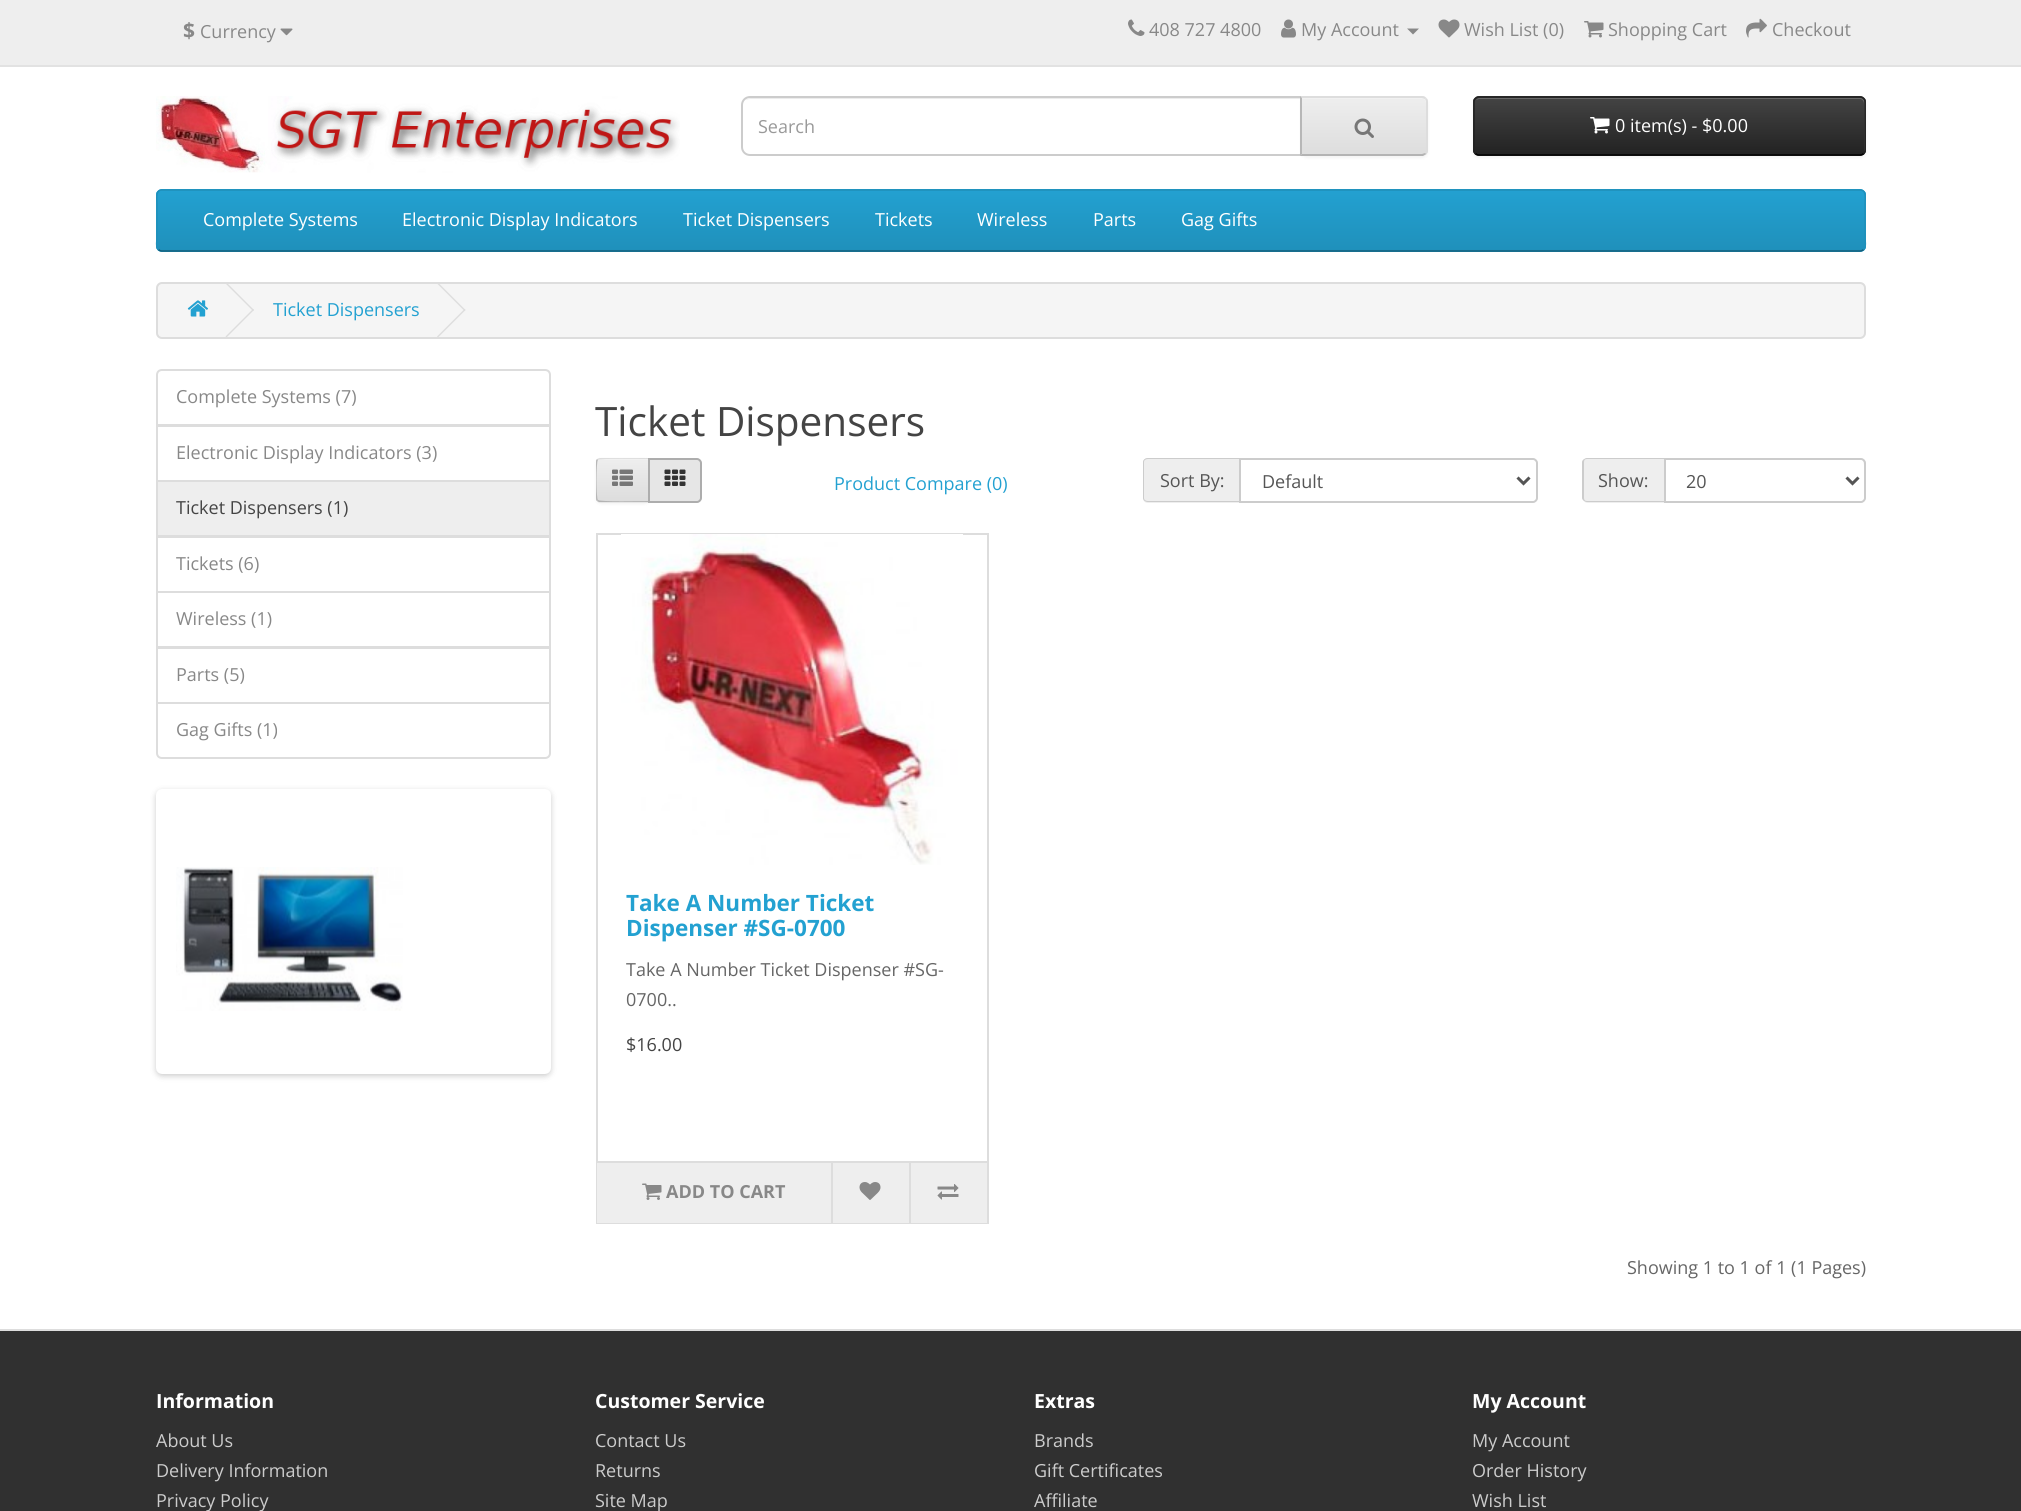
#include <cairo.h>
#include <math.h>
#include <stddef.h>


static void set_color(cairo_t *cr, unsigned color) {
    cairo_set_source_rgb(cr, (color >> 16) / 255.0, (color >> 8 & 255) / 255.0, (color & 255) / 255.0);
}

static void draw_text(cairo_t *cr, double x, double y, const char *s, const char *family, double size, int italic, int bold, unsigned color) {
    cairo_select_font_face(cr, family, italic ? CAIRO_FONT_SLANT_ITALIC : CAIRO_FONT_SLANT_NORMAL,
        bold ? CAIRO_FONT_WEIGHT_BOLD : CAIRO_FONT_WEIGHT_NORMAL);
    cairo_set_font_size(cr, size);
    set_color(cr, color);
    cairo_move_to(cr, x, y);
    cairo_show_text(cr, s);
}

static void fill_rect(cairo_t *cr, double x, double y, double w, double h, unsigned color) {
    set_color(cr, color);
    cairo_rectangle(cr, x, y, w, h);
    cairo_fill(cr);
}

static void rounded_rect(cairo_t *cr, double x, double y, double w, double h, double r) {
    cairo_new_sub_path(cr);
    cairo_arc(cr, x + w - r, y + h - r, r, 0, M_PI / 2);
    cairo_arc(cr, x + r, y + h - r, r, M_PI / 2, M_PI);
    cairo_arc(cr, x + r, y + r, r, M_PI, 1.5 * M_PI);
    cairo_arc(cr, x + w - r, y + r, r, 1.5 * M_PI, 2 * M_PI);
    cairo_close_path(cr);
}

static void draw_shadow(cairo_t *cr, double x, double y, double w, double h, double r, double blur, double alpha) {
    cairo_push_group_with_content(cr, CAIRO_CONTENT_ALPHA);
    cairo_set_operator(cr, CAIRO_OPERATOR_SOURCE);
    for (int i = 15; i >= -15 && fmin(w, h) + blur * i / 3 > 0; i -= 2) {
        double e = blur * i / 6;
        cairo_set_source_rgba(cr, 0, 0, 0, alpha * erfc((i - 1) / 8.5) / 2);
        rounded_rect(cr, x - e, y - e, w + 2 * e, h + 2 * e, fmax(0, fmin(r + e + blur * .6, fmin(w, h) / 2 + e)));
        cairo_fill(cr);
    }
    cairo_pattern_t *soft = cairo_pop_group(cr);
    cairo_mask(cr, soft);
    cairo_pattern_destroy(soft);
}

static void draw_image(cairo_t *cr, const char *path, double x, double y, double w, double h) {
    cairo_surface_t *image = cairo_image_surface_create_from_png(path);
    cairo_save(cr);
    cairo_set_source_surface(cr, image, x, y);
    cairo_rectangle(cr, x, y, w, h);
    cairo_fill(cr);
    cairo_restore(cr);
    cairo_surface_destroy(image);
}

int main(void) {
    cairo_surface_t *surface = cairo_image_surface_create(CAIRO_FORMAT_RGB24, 2021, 1511);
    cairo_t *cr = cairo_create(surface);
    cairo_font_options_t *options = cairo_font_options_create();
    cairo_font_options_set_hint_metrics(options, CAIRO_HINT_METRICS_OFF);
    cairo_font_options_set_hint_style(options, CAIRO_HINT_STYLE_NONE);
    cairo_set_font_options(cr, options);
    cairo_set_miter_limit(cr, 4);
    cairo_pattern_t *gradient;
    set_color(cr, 0xFFFFFF);
    cairo_paint(cr);
    fill_rect(cr, 0, 0, 2021, 65, 0xEEEEEE);
    fill_rect(cr, 0, 65, 2021, 2, 0xE2E2E2);
    draw_text(cr, 183, 38, "$", "Open Sans", 21, 0, 1, 0x888888);
    draw_text(cr, 200, 38, "Currency", "Open Sans", 18, 0, 0, 0x888888);
    draw_image(cr, "assets/img1.png", 280, 28, 13, 8);
    draw_image(cr, "assets/img2.png", 1128, 19, 17, 17);
    draw_text(cr, 1149, 36, "408 727 4800", "Open Sans", 18, 0, 0, 0x888888);
    draw_image(cr, "assets/img3.png", 1281, 19, 15, 19);
    draw_text(cr, 1301, 36, "My Account", "Open Sans", 18, 0, 0, 0x888888);
    cairo_new_path(cr);
    cairo_move_to(cr, 1407, 28.5);
    cairo_line_to(cr, 1419, 28.5);
    cairo_line_to(cr, 1413, 34.5);
    cairo_close_path(cr);
    cairo_fill(cr);
    draw_image(cr, "assets/img4.png", 1438, 19, 22, 19);
    draw_text(cr, 1464, 36, "Wish List (0)", "Open Sans", 18, 0, 0, 0x888888);
    draw_image(cr, "assets/img5.png", 1584, 21, 20, 17);
    draw_text(cr, 1608, 36, "Shopping Cart", "Open Sans", 18, 0, 0, 0x888888);
    draw_image(cr, "assets/img6.png", 1746, 18, 21, 20);
    draw_text(cr, 1772, 36, "Checkout", "Open Sans", 18, 0, 0, 0x888888);
    draw_image(cr, "assets/img7.png", 156, 96, 524, 77);
    set_color(cr, 0xECECEC);
    cairo_new_path(cr);
    cairo_move_to(cr, 750, 99);
    cairo_line_to(cr, 1300, 99);
    cairo_line_to(cr, 1300, 155);
    cairo_line_to(cr, 1301, 155);
    cairo_line_to(cr, 1301, 98);
    cairo_line_to(cr, 751, 98);
    cairo_curve_to(cr, 749, 98, 747, 99, 745, 100);
    cairo_curve_to(cr, 747, 100, 748, 99, 750, 99);
    cairo_close_path(cr);
    cairo_fill(cr);
    cairo_new_path(cr);
    cairo_move_to(cr, 750, 97);
    cairo_line_to(cr, 1301, 97);
    cairo_line_to(cr, 1301, 155);
    cairo_line_to(cr, 750, 155);
    cairo_curve_to(cr, 745.5, 155, 742, 151.5, 742, 147);
    cairo_line_to(cr, 742, 105);
    cairo_curve_to(cr, 742, 100.5, 745.5, 97, 750, 97);
    cairo_close_path(cr);
    set_color(cr, 0xCCCCCC);
    cairo_stroke(cr);
    draw_text(cr, 758, 133, "Search", "Open Sans", 18, 0, 0, 0x999999);
    set_color(cr, 0x000000);
    draw_shadow(cr, 1301, 98, 127, 60, 6, 1.5, 0.05);
    set_color(cr, 0xE7E7E7);
    cairo_new_path(cr);
    cairo_move_to(cr, 1301, 96);
    cairo_line_to(cr, 1422, 96);
    cairo_curve_to(cr, 1425.5, 96, 1428, 98.5, 1428, 102);
    cairo_line_to(cr, 1428, 150);
    cairo_curve_to(cr, 1428, 153.5, 1425.5, 156, 1422, 156);
    cairo_line_to(cr, 1301, 156);
    cairo_close_path(cr);
    cairo_fill(cr);
    cairo_save(cr);
    cairo_new_path(cr);
    cairo_move_to(cr, 1301, 96);
    cairo_line_to(cr, 1422, 96);
    cairo_curve_to(cr, 1425.5, 96, 1428, 98.5, 1428, 102);
    cairo_line_to(cr, 1428, 150);
    cairo_curve_to(cr, 1428, 153.5, 1425.5, 156, 1422, 156);
    cairo_line_to(cr, 1301, 156);
    cairo_close_path(cr);
    cairo_clip(cr);
    gradient = cairo_pattern_create_linear(1364, 98, 1364, 155);
    cairo_pattern_add_color_stop_rgba(gradient, 0, 0.933, 0.933, 0.933, 1);
    cairo_pattern_add_color_stop_rgba(gradient, 1, 0.867, 0.867, 0.867, 1);
    cairo_set_source(cr, gradient);
    cairo_pattern_destroy(gradient);
    cairo_rectangle(cr, 1301, 98, 127, 57);
    cairo_fill(cr);
    cairo_restore(cr);
    cairo_set_source_rgba(cr, 1, 1, 1, 0.2);
    cairo_new_path(cr);
    cairo_move_to(cr, 1302, 99);
    cairo_line_to(cr, 1422, 99);
    cairo_curve_to(cr, 1428, 99, 1426, 110, 1426, 112);
    cairo_line_to(cr, 1426, 153);
    cairo_curve_to(cr, 1427, 152, 1427, 151, 1427, 150);
    cairo_line_to(cr, 1427, 103);
    cairo_curve_to(cr, 1427, 100, 1425, 98, 1422, 98);
    cairo_line_to(cr, 1302, 98);
    cairo_close_path(cr);
    cairo_fill(cr);
    set_color(cr, 0xDDDDDD);
    cairo_new_path(cr);
    cairo_move_to(cr, 1300, 96);
    cairo_line_to(cr, 1302, 98);
    cairo_line_to(cr, 1422, 98);
    cairo_line_to(cr, 1425, 99);
    cairo_line_to(cr, 1426, 98);
    cairo_curve_to(cr, 1425, 97, 1424, 96, 1422, 96);
    cairo_close_path(cr);
    cairo_fill(cr);
    cairo_new_path(cr);
    cairo_move_to(cr, 1428, 150);
    cairo_line_to(cr, 1428, 102);
    cairo_curve_to(cr, 1428, 100, 1427, 99, 1426, 98);
    cairo_line_to(cr, 1425, 99);
    cairo_curve_to(cr, 1426, 100, 1426, 101, 1426, 102);
    cairo_line_to(cr, 1426, 150);
    cairo_curve_to(cr, 1426, 151, 1426, 152, 1425, 153);
    cairo_line_to(cr, 1426, 154);
    cairo_curve_to(cr, 1427, 153, 1428, 152, 1428, 150);
    cairo_close_path(cr);
    cairo_fill(cr);
    set_color(cr, 0xB3B3B3);
    cairo_new_path(cr);
    cairo_move_to(cr, 1300, 156);
    cairo_line_to(cr, 1423, 156);
    cairo_line_to(cr, 1426, 154);
    cairo_line_to(cr, 1425, 153);
    cairo_line_to(cr, 1422, 154);
    cairo_line_to(cr, 1302, 154);
    cairo_close_path(cr);
    cairo_fill(cr);
    set_color(cr, 0xB7B7B7);
    cairo_new_path(cr);
    cairo_move_to(cr, 1302, 98);
    cairo_line_to(cr, 1300, 96);
    cairo_line_to(cr, 1300, 156);
    cairo_line_to(cr, 1302, 154);
    cairo_close_path(cr);
    cairo_fill(cr);
    draw_image(cr, "assets/img8.png", 1354, 118, 20, 20);
    set_color(cr, 0x000000);
    draw_shadow(cr, 1473, 98, 393, 60, 6, 1.5, 0.05);
    set_color(cr, 0x363636);
    rounded_rect(cr, 1473, 96, 393, 60, 6);
    cairo_fill(cr);
    cairo_save(cr);
    rounded_rect(cr, 1473, 96, 393, 60, 6);
    cairo_clip(cr);
    gradient = cairo_pattern_create_linear(1670, 97, 1670, 155);
    cairo_pattern_add_color_stop_rgba(gradient, 0, 0.267, 0.267, 0.267, 1);
    cairo_pattern_add_color_stop_rgba(gradient, 1, 0.133, 0.133, 0.133, 1);
    cairo_set_source(cr, gradient);
    cairo_pattern_destroy(gradient);
    cairo_rectangle(cr, 1473, 98, 393, 57);
    cairo_fill(cr);
    cairo_restore(cr);
    cairo_set_source_rgba(cr, 1, 1, 1, 0.2);
    cairo_new_path(cr);
    cairo_move_to(cr, 1479, 99);
    cairo_line_to(cr, 1860, 99);
    cairo_curve_to(cr, 1862, 99, 1864, 101, 1864, 104);
    cairo_line_to(cr, 1864, 153);
    cairo_curve_to(cr, 1865, 152, 1865, 151, 1865, 150);
    cairo_line_to(cr, 1865, 103);
    cairo_curve_to(cr, 1865, 100, 1863, 98, 1860, 98);
    cairo_line_to(cr, 1480, 98);
    cairo_curve_to(cr, 1478, 98, 1477, 99, 1476, 100);
    cairo_close_path(cr);
    cairo_fill(cr);
    cairo_new_path(cr);
    cairo_move_to(cr, 1863.5, 153.5);
    cairo_curve_to(cr, 1862.5, 154.5, 1861.5, 155, 1860, 155);
    cairo_line_to(cr, 1479, 155);
    cairo_curve_to(cr, 1477.5, 155, 1476.5, 154.5, 1475.5, 153.5);
    set_color(cr, 0x000000);
    cairo_set_line_width(cr, 1.5);
    cairo_stroke(cr);
    cairo_new_path(cr);
    cairo_move_to(cr, 1475.5, 153.5);
    cairo_curve_to(cr, 1474.5, 152.5, 1474, 151.5, 1474, 150);
    cairo_line_to(cr, 1474, 102);
    cairo_curve_to(cr, 1474, 100.5, 1474.5, 99.5, 1475.5, 98.5);
    cairo_curve_to(cr, 1476.5, 97.5, 1477.5, 97, 1479, 97);
    cairo_line_to(cr, 1860, 97);
    cairo_curve_to(cr, 1861.5, 97, 1862.5, 97.5, 1863.5, 98.5);
    cairo_curve_to(cr, 1864.5, 99.5, 1865, 100.5, 1865, 102);
    cairo_line_to(cr, 1865, 150);
    cairo_curve_to(cr, 1865, 151.5, 1864.5, 152.5, 1863.5, 153.5);
    set_color(cr, 0x222222);
    cairo_stroke(cr);
    draw_image(cr, "assets/img9.png", 1590, 117, 20, 17);
    draw_text(cr, 1615, 132, "0 item(s) - $0.00", "Open Sans", 18, 0, 0, 0xFFFFFF);
    set_color(cr, 0x229AC8);
    rounded_rect(cr, 156, 189, 1710, 63, 6);
    cairo_fill(cr);
    cairo_save(cr);
    rounded_rect(cr, 156, 189, 1710, 63, 6);
    cairo_clip(cr);
    gradient = cairo_pattern_create_linear(1011, 190, 1011, 251);
    cairo_pattern_add_color_stop_rgba(gradient, 0, 0.137, 0.631, 0.82, 1);
    cairo_pattern_add_color_stop_rgba(gradient, 1, 0.122, 0.565, 0.733, 1);
    cairo_set_source(cr, gradient);
    cairo_pattern_destroy(gradient);
    cairo_rectangle(cr, 156, 191, 1710, 60);
    cairo_fill(cr);
    cairo_restore(cr);
    cairo_new_path(cr);
    cairo_move_to(cr, 1863.5, 249.5);
    cairo_curve_to(cr, 1862.5, 250.5, 1861.5, 251, 1860, 251);
    cairo_line_to(cr, 162, 251);
    cairo_curve_to(cr, 160.5, 251, 159.5, 250.5, 158.5, 249.5);
    set_color(cr, 0x145E7A);
    cairo_stroke(cr);
    cairo_new_path(cr);
    cairo_move_to(cr, 158.5, 249.5);
    cairo_curve_to(cr, 155.5, 247, 157, 240, 157, 237.5);
    cairo_line_to(cr, 157, 203.5);
    cairo_curve_to(cr, 157, 199.5, 155, 190, 162, 190);
    cairo_line_to(cr, 1860, 190);
    cairo_curve_to(cr, 1867, 190, 1865, 199.5, 1865, 203.5);
    cairo_line_to(cr, 1865, 237.5);
    cairo_curve_to(cr, 1865, 240, 1866.5, 247, 1863.5, 249.5);
    set_color(cr, 0x1F90BB);
    cairo_stroke(cr);
    draw_text(cr, 203, 226, "Complete Systems", "Open Sans", 18, 0, 0, 0xFFFFFF);
    draw_text(cr, 402, 226, "Electronic Display Indicators", "Open Sans", 18, 0, 0, 0xFFFFFF);
    draw_text(cr, 683, 226, "Ticket Dispensers", "Open Sans", 18, 0, 0, 0xFFFFFF);
    draw_text(cr, 875, 226, "Tickets", "Open Sans", 18, 0, 0, 0xFFFFFF);
    draw_text(cr, 977, 226, "Wireless", "Open Sans", 18, 0, 0, 0xFFFFFF);
    draw_text(cr, 1093, 226, "Parts", "Open Sans", 18, 0, 0, 0xFFFFFF);
    draw_text(cr, 1181, 226, "Gag Gifts", "Open Sans", 18, 0, 0, 0xFFFFFF);
    set_color(cr, 0xF5F5F5);
    rounded_rect(cr, 157, 283, 1708, 55, 5);
    cairo_fill_preserve(cr);
    set_color(cr, 0xDDDDDD);
    cairo_set_line_width(cr, 2);
    cairo_stroke(cr);
    draw_image(cr, "assets/img10.png", 187, 300, 21, 17);
    cairo_new_path(cr);
    cairo_move_to(cr, 225.5, 283.5);
    cairo_line_to(cr, 226.5, 282.5);
    cairo_line_to(cr, 254, 310);
    cairo_line_to(cr, 253, 311);
    cairo_close_path(cr);
    cairo_fill(cr);
    cairo_new_path(cr);
    cairo_move_to(cr, 225.5, 336.5);
    cairo_line_to(cr, 253, 309);
    cairo_line_to(cr, 254, 310);
    cairo_line_to(cr, 226.5, 337.5);
    cairo_close_path(cr);
    cairo_fill(cr);
    draw_text(cr, 273, 316, "Ticket Dispensers", "Open Sans", 18, 0, 0, 0x23A1D1);
    set_color(cr, 0xDDDDDD);
    cairo_new_path(cr);
    cairo_move_to(cr, 437, 283.5);
    cairo_line_to(cr, 438, 282.5);
    cairo_line_to(cr, 465.5, 310);
    cairo_line_to(cr, 464.5, 311);
    cairo_close_path(cr);
    cairo_fill(cr);
    cairo_new_path(cr);
    cairo_move_to(cr, 437, 336.5);
    cairo_line_to(cr, 464.5, 309);
    cairo_line_to(cr, 465.5, 310);
    cairo_line_to(cr, 438, 337.5);
    cairo_close_path(cr);
    cairo_fill(cr);
    cairo_new_path(cr);
    cairo_move_to(cr, 162, 370);
    cairo_line_to(cr, 545, 370);
    cairo_curve_to(cr, 548, 370, 550, 372, 550, 375);
    cairo_line_to(cr, 550, 425);
    cairo_line_to(cr, 157, 425);
    cairo_line_to(cr, 157, 375);
    cairo_curve_to(cr, 157, 372, 159, 370, 162, 370);
    cairo_close_path(cr);
    cairo_stroke(cr);
    draw_text(cr, 176, 403, "Complete Systems (7)", "Open Sans", 18, 0, 0, 0x888888);
    cairo_rectangle(cr, 157, 426, 393, 55);
    set_color(cr, 0xDDDDDD);
    cairo_stroke(cr);
    draw_text(cr, 176, 459, "Electronic Display Indicators (3)", "Open Sans", 18, 0, 0, 0x888888);
    cairo_rectangle(cr, 157, 537, 393, 55);
    set_color(cr, 0xDDDDDD);
    cairo_stroke(cr);
    set_color(cr, 0xEEEEEE);
    cairo_rectangle(cr, 157, 481, 393, 55);
    cairo_fill_preserve(cr);
    set_color(cr, 0xDDDDDD);
    cairo_stroke(cr);
    draw_text(cr, 176, 514, "Ticket Dispensers (1)", "Open Sans", 18, 0, 0, 0x444444);
    draw_text(cr, 176, 570, "Tickets (6)", "Open Sans", 18, 0, 0, 0x888888);
    cairo_rectangle(cr, 157, 592, 393, 55);
    set_color(cr, 0xDDDDDD);
    cairo_stroke(cr);
    draw_text(cr, 176, 625, "Wireless (1)", "Open Sans", 18, 0, 0, 0x888888);
    cairo_rectangle(cr, 157, 648, 393, 55);
    set_color(cr, 0xDDDDDD);
    cairo_stroke(cr);
    draw_text(cr, 176, 681, "Parts (5)", "Open Sans", 18, 0, 0, 0x888888);
    set_color(cr, 0xFFFFFF);
    cairo_new_path(cr);
    cairo_move_to(cr, 157, 703);
    cairo_line_to(cr, 550, 703);
    cairo_line_to(cr, 550, 753);
    cairo_curve_to(cr, 550, 756, 548, 758, 545, 758);
    cairo_line_to(cr, 162, 758);
    cairo_curve_to(cr, 159, 758, 157, 756, 157, 753);
    cairo_close_path(cr);
    cairo_fill_preserve(cr);
    set_color(cr, 0xDDDDDD);
    cairo_stroke(cr);
    draw_text(cr, 176, 736, "Gag Gifts (1)", "Open Sans", 18, 0, 0, 0x888888);
    set_color(cr, 0x000000);
    draw_shadow(cr, 156, 791, 395, 285, 6, 3, 0.2);
    set_color(cr, 0xFFFFFF);
    rounded_rect(cr, 159, 792, 389, 279, 3);
    cairo_fill_preserve(cr);
    cairo_set_line_width(cr, 6);
    cairo_stroke(cr);
    draw_image(cr, "assets/img11.png", 176, 867, 227, 144);
    draw_text(cr, 595, 436, "Ticket Dispensers", "Open Sans", 40.5, 0, 0, 0x444444);
    set_color(cr, 0x000000);
    draw_shadow(cr, 596, 459, 54, 45, 5, 1.5, 0.05);
    set_color(cr, 0xE7E7E7);
    cairo_new_path(cr);
    cairo_move_to(cr, 601, 458);
    cairo_line_to(cr, 650, 458);
    cairo_line_to(cr, 650, 503);
    cairo_line_to(cr, 601, 503);
    cairo_curve_to(cr, 598, 503, 596, 501, 596, 498);
    cairo_line_to(cr, 596, 463);
    cairo_curve_to(cr, 596, 460, 598, 458, 601, 458);
    cairo_close_path(cr);
    cairo_fill(cr);
    cairo_save(cr);
    cairo_new_path(cr);
    cairo_move_to(cr, 601, 458);
    cairo_line_to(cr, 650, 458);
    cairo_line_to(cr, 650, 503);
    cairo_line_to(cr, 601, 503);
    cairo_curve_to(cr, 598, 503, 596, 501, 596, 498);
    cairo_line_to(cr, 596, 463);
    cairo_curve_to(cr, 596, 460, 598, 458, 601, 458);
    cairo_close_path(cr);
    cairo_clip(cr);
    gradient = cairo_pattern_create_linear(623, 459, 623, 501);
    cairo_pattern_add_color_stop_rgba(gradient, 0, 0.933, 0.933, 0.933, 1);
    cairo_pattern_add_color_stop_rgba(gradient, 1, 0.867, 0.867, 0.867, 1);
    cairo_set_source(cr, gradient);
    cairo_pattern_destroy(gradient);
    cairo_rectangle(cr, 596, 459, 52, 42);
    cairo_fill(cr);
    cairo_restore(cr);
    set_color(cr, 0xF1F1F1);
    cairo_new_path(cr);
    cairo_move_to(cr, 600, 460);
    cairo_line_to(cr, 648, 460);
    cairo_line_to(cr, 648, 459);
    cairo_line_to(cr, 600, 459);
    cairo_curve_to(cr, 598, 459, 597, 460, 597, 462);
    cairo_line_to(cr, 597, 464);
    cairo_curve_to(cr, 597, 462, 598, 460, 600, 460);
    cairo_close_path(cr);
    cairo_fill(cr);
    set_color(cr, 0xDDDDDD);
    cairo_new_path(cr);
    cairo_move_to(cr, 600, 458);
    cairo_line_to(cr, 597, 459);
    cairo_line_to(cr, 598, 460);
    cairo_curve_to(cr, 600, 458, 642, 459, 648, 459);
    cairo_line_to(cr, 649, 458);
    cairo_close_path(cr);
    cairo_fill(cr);
    set_color(cr, 0xB3B3B3);
    cairo_new_path(cr);
    cairo_move_to(cr, 649, 502);
    cairo_line_to(cr, 599, 502);
    cairo_line_to(cr, 597, 501);
    cairo_line_to(cr, 598, 500);
    cairo_curve_to(cr, 600, 502, 642, 501, 648, 501);
    cairo_close_path(cr);
    cairo_fill(cr);
    set_color(cr, 0xB7B7B7);
    cairo_new_path(cr);
    cairo_move_to(cr, 597, 459);
    cairo_curve_to(cr, 596, 460, 596, 461, 596, 462);
    cairo_line_to(cr, 596, 498);
    cairo_curve_to(cr, 596, 499, 596, 500, 597, 501);
    cairo_line_to(cr, 598, 500);
    cairo_curve_to(cr, 596, 499, 596, 461, 598, 460);
    cairo_close_path(cr);
    cairo_fill(cr);
    draw_image(cr, "assets/img12.png", 612, 469, 21, 17);
    set_color(cr, 0xE6E6E6);
    cairo_new_path(cr);
    cairo_move_to(cr, 649, 459);
    cairo_line_to(cr, 697, 459);
    cairo_curve_to(cr, 699, 459, 701, 461, 701, 463);
    cairo_line_to(cr, 701, 498);
    cairo_curve_to(cr, 701, 500, 699, 502, 697, 502);
    cairo_line_to(cr, 649, 502);
    cairo_close_path(cr);
    cairo_fill_preserve(cr);
    set_color(cr, 0xADADAD);
    cairo_set_line_width(cr, 2);
    cairo_stroke(cr);
    draw_image(cr, "assets/img13.png", 664, 469, 22, 17);
    draw_text(cr, 834, 490, "Product Compare (0)", "Open Sans", 18, 0, 0, 0x23A1D1);
    set_color(cr, 0xEEEEEE);
    cairo_new_path(cr);
    cairo_move_to(cr, 1148, 458);
    cairo_line_to(cr, 1239, 458);
    cairo_line_to(cr, 1239, 503);
    cairo_line_to(cr, 1148, 503);
    cairo_curve_to(cr, 1145, 503, 1143, 501, 1143, 498);
    cairo_line_to(cr, 1143, 463);
    cairo_curve_to(cr, 1143, 460, 1145, 458, 1148, 458);
    cairo_close_path(cr);
    cairo_fill(cr);
    set_color(cr, 0xCCCCCC);
    cairo_set_fill_rule(cr, CAIRO_FILL_RULE_EVEN_ODD);
    cairo_new_path(cr);
    cairo_move_to(cr, 1148, 458);
    cairo_line_to(cr, 1239, 458);
    cairo_line_to(cr, 1239, 502);
    cairo_line_to(cr, 1148, 502);
    cairo_curve_to(cr, 1145, 502, 1143, 500, 1143, 498);
    cairo_line_to(cr, 1143, 462);
    cairo_curve_to(cr, 1143, 460, 1145, 458, 1148, 458);
    cairo_close_path(cr);
    cairo_move_to(cr, 1148, 459);
    cairo_line_to(cr, 1239, 459);
    cairo_line_to(cr, 1239, 501);
    cairo_line_to(cr, 1148, 501);
    cairo_curve_to(cr, 1146, 501, 1144, 500, 1144, 498);
    cairo_line_to(cr, 1144, 462);
    cairo_curve_to(cr, 1144, 460, 1146, 459, 1148, 459);
    cairo_close_path(cr);
    cairo_fill(cr);
    draw_text(cr, 1160, 487, "Sort By:", "Open Sans", 18, 0, 0, 0x555555);
    cairo_new_path(cr);
    cairo_move_to(cr, 1240, 459);
    cairo_line_to(cr, 1533, 459);
    cairo_curve_to(cr, 1535, 459, 1537, 461, 1537, 463);
    cairo_line_to(cr, 1537, 498);
    cairo_curve_to(cr, 1537, 500, 1535, 502, 1533, 502);
    cairo_line_to(cr, 1240, 502);
    cairo_close_path(cr);
    set_color(cr, 0xCCCCCC);
    cairo_stroke(cr);
    cairo_new_path(cr);
    cairo_move_to(cr, 1517.5, 477.5);
    cairo_line_to(cr, 1523.5, 483.5);
    cairo_line_to(cr, 1529.5, 477.5);
    set_color(cr, 0x555555);
    cairo_set_line_width(cr, 3);
    cairo_stroke(cr);
    draw_text(cr, 1262, 488, "Default", "Open Sans", 18, 0, 0, 0x555555);
    set_color(cr, 0xEEEEEE);
    cairo_new_path(cr);
    cairo_move_to(cr, 1588, 458);
    cairo_line_to(cr, 1664, 458);
    cairo_line_to(cr, 1664, 503);
    cairo_line_to(cr, 1588, 503);
    cairo_curve_to(cr, 1585, 503, 1583, 501, 1583, 498);
    cairo_line_to(cr, 1583, 463);
    cairo_curve_to(cr, 1583, 460, 1585, 458, 1588, 458);
    cairo_close_path(cr);
    cairo_fill(cr);
    set_color(cr, 0xCCCCCC);
    cairo_new_path(cr);
    cairo_move_to(cr, 1587, 458);
    cairo_line_to(cr, 1664, 458);
    cairo_line_to(cr, 1664, 502);
    cairo_line_to(cr, 1587, 502);
    cairo_curve_to(cr, 1585, 502, 1582, 500, 1582, 498);
    cairo_line_to(cr, 1582, 462);
    cairo_curve_to(cr, 1582, 460, 1585, 458, 1587, 458);
    cairo_close_path(cr);
    cairo_move_to(cr, 1587, 459);
    cairo_line_to(cr, 1664, 459);
    cairo_line_to(cr, 1664, 501);
    cairo_line_to(cr, 1587, 501);
    cairo_curve_to(cr, 1585, 501, 1584, 500, 1584, 498);
    cairo_line_to(cr, 1584, 462);
    cairo_curve_to(cr, 1584, 460, 1585, 459, 1587, 459);
    cairo_close_path(cr);
    cairo_fill(cr);
    draw_text(cr, 1598, 487, "Show:", "Open Sans", 18, 0, 0, 0x555555);
    set_color(cr, 0xECECEC);
    cairo_set_fill_rule(cr, CAIRO_FILL_RULE_WINDING);
    cairo_new_path(cr);
    cairo_move_to(cr, 1665, 460);
    cairo_line_to(cr, 1862, 460);
    cairo_curve_to(cr, 1865, 460, 1864, 475, 1864, 476);
    cairo_line_to(cr, 1864, 500);
    cairo_curve_to(cr, 1865, 500, 1865, 499, 1865, 498);
    cairo_line_to(cr, 1865, 462);
    cairo_curve_to(cr, 1865, 460, 1864, 459, 1862, 459);
    cairo_line_to(cr, 1665, 459);
    cairo_close_path(cr);
    cairo_fill(cr);
    cairo_new_path(cr);
    cairo_move_to(cr, 1665, 459);
    cairo_line_to(cr, 1861, 459);
    cairo_curve_to(cr, 1863, 459, 1865, 461, 1865, 463);
    cairo_line_to(cr, 1865, 498);
    cairo_curve_to(cr, 1865, 500, 1863, 502, 1861, 502);
    cairo_line_to(cr, 1665, 502);
    cairo_close_path(cr);
    set_color(cr, 0xCCCCCC);
    cairo_set_line_width(cr, 2);
    cairo_stroke(cr);
    cairo_new_path(cr);
    cairo_move_to(cr, 1846.5, 477.5);
    cairo_line_to(cr, 1852.5, 483.5);
    cairo_line_to(cr, 1858.5, 477.5);
    set_color(cr, 0x555555);
    cairo_set_line_width(cr, 3);
    cairo_stroke(cr);
    draw_text(cr, 1686, 488, "20", "Open Sans", 18, 0, 0, 0x555555);
    cairo_rectangle(cr, 597, 534, 391, 689);
    set_color(cr, 0xDDDDDD);
    cairo_set_line_width(cr, 2);
    cairo_stroke(cr);
    draw_image(cr, "assets/img14.png", 621, 534, 342, 331);
    draw_text(cr, 626, 911, "Take A Number Ticket", "Open Sans", 22.5, 0, 1, 0x23A1D1);
    draw_text(cr, 626, 936, "Dispenser #SG-0700", "Open Sans", 22.5, 0, 1, 0x23A1D1);
    draw_text(cr, 626, 976, "Take A Number Ticket Dispenser #SG-", "Open Sans", 18, 0, 0, 0x666666);
    draw_text(cr, 626, 1006, "0700..", "Open Sans", 18, 0, 0, 0x666666);
    draw_text(cr, 626, 1051, "$16.00", "Open Sans", 18, 0, 0, 0x444444);
    fill_rect(cr, 597, 1163, 390, 60, 0xEEEEEE);
    fill_rect(cr, 597, 1161, 390, 2, 0xDDDDDD);
    draw_image(cr, "assets/img15.png", 642, 1183, 20, 17);
    draw_text(cr, 666, 1198, "ADD TO CART", "Open Sans", 18, 0, 1, 0x888888);
    fill_rect(cr, 831, 1163, 2, 60, 0xDDDDDD);
    draw_image(cr, "assets/img16.png", 859, 1182, 22, 18);
    fill_rect(cr, 909, 1163, 2, 60, 0xDDDDDD);
    draw_image(cr, "assets/img17.png", 937, 1184, 22, 16);
    draw_text(cr, 1627, 1274, "Showing 1 to 1 of 1 (1 Pages)", "Open Sans", 18, 0, 0, 0x666666);
    fill_rect(cr, 0, 1331, 2021, 180, 0x303030);
    fill_rect(cr, 0, 1329, 2021, 2, 0xDDDDDD);
    draw_text(cr, 156, 1408, "Information", "Open Sans", 19.5, 0, 1, 0xFFFFFF);
    draw_text(cr, 156, 1447, "About Us", "Open Sans", 18, 0, 0, 0xCCCCCC);
    draw_text(cr, 156, 1477, "Delivery Information", "Open Sans", 18, 0, 0, 0xCCCCCC);
    draw_text(cr, 156, 1507, "Privacy Policy", "Open Sans", 18, 0, 0, 0xCCCCCC);
    draw_text(cr, 595, 1408, "Customer Service", "Open Sans", 19.5, 0, 1, 0xFFFFFF);
    draw_text(cr, 595, 1447, "Contact Us", "Open Sans", 18, 0, 0, 0xCCCCCC);
    draw_text(cr, 595, 1477, "Returns", "Open Sans", 18, 0, 0, 0xCCCCCC);
    draw_text(cr, 595, 1507, "Site Map", "Open Sans", 18, 0, 0, 0xCCCCCC);
    draw_text(cr, 1034, 1408, "Extras", "Open Sans", 19.5, 0, 1, 0xFFFFFF);
    draw_text(cr, 1034, 1447, "Brands", "Open Sans", 18, 0, 0, 0xCCCCCC);
    draw_text(cr, 1034, 1477, "Gift Certificates", "Open Sans", 18, 0, 0, 0xCCCCCC);
    draw_text(cr, 1034, 1507, "Affiliate", "Open Sans", 18, 0, 0, 0xCCCCCC);
    draw_text(cr, 1472, 1408, "My Account", "Open Sans", 19.5, 0, 1, 0xFFFFFF);
    draw_text(cr, 1472, 1447, "My Account", "Open Sans", 18, 0, 0, 0xCCCCCC);
    draw_text(cr, 1472, 1477, "Order History", "Open Sans", 18, 0, 0, 0xCCCCCC);
    draw_text(cr, 1472, 1507, "Wish List", "Open Sans", 18, 0, 0, 0xCCCCCC);
    cairo_surface_write_to_png(surface, "output.png");
    cairo_font_options_destroy(options);
    cairo_destroy(cr);
    cairo_surface_destroy(surface);
    return 0;
}
